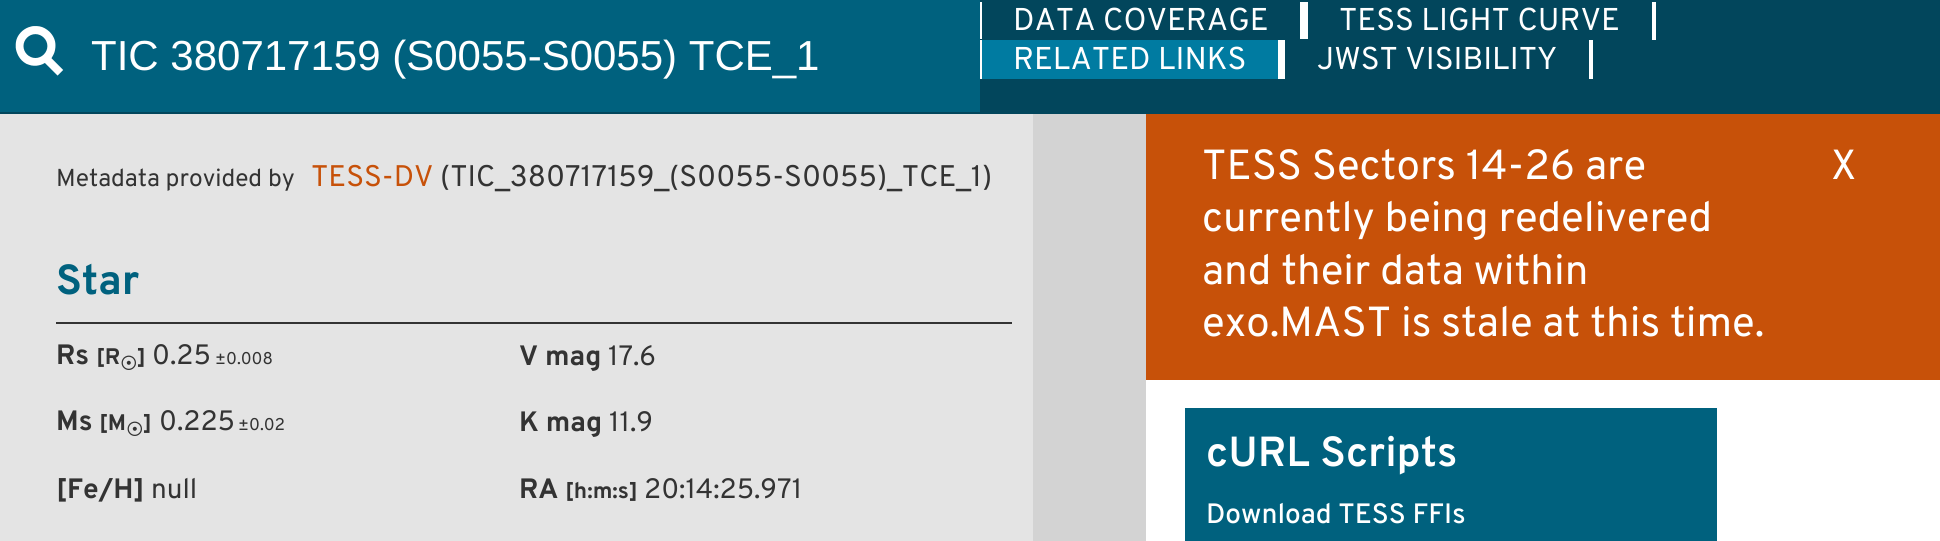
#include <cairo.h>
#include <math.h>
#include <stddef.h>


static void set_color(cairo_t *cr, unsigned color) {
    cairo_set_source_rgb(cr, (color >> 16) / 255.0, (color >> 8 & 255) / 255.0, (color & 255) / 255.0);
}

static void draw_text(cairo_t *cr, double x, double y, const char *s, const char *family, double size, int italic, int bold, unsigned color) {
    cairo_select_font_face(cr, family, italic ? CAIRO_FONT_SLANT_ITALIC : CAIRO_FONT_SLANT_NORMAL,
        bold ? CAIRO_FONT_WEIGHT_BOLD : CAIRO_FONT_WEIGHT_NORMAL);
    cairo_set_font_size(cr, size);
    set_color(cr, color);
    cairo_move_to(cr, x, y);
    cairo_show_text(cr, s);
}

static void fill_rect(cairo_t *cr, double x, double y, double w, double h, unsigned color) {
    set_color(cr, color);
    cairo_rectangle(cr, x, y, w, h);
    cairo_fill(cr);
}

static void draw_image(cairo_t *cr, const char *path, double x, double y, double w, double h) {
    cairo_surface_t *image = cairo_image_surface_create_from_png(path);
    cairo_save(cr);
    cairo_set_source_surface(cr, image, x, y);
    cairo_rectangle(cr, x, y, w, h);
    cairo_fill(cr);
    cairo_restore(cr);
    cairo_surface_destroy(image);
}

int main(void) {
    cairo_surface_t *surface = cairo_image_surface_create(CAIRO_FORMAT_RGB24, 1940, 541);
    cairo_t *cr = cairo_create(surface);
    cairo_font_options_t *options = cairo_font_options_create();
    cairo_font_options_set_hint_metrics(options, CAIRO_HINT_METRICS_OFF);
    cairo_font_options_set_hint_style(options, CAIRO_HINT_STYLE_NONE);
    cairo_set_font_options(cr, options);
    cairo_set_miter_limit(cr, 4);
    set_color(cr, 0xFFFFFF);
    cairo_paint(cr);
    fill_rect(cr, 0, 0, 1940, 114, 0x02465C);
    fill_rect(cr, 0, 0, 980, 112, 0x00617E);
    draw_image(cr, "assets/img1.png", 15, 26, 49, 50);
    draw_text(cr, 91, 70, "TIC 380717159 (S0055-S0055) TCE_1", "Liberation Sans", 42, 0, 0, 0xFFFFFF);
    fill_rect(cr, 1300, 2, 8, 38, 0xFFFFFF);
    fill_rect(cr, 980, 2, 2, 77, 0xFFFFFF);
    draw_text(cr, 1013, 30, "DATA COVERAGE", "Overpass", 31.5, 0, 0, 0xFFFFFF);
    fill_rect(cr, 1652, 2, 4, 38, 0xFFFFFF);
    draw_text(cr, 1339, 30, "TESS LIGHT CURVE", "Overpass", 31.5, 0, 0, 0xFFFFFF);
    fill_rect(cr, 980, 39, 2, 1, 0x02465C);
    fill_rect(cr, 982, 40, 296, 39, 0x007BA1);
    fill_rect(cr, 1278, 40, 7, 39, 0xFFFFFF);
    draw_text(cr, 1013, 69, "RELATED LINKS", "Overpass", 31.5, 0, 0, 0xFFFFFF);
    fill_rect(cr, 1300, 39, 8, 1, 0x02465C);
    fill_rect(cr, 1589, 40, 4, 39, 0xFFFFFF);
    draw_text(cr, 1317, 69, "JWST VISIBILITY", "Overpass", 31.5, 0, 0, 0xFFFFFF);
    fill_rect(cr, 1033, 114, 113, 427, 0xD3D3D3);
    fill_rect(cr, 0, 114, 1033, 427, 0xE4E4E4);
    draw_text(cr, 56, 186, "Metadata provided by", "Overpass", 24.5, 0, 0, 0x333333);
    draw_text(cr, 311, 186, "TESS-DV", "Overpass", 29.75, 0, 0, 0xC75109);
    draw_text(cr, 440, 186, "(TIC_380717159_(S0055-S0055)_TCE_1)", "Overpass", 29.75, 0, 0, 0x333333);
    fill_rect(cr, 56, 322, 956, 2, 0x333333);
    draw_text(cr, 56, 294, "Star", "Overpass", 42, 0, 1, 0x00617E);
    draw_text(cr, 56, 364, "Rs", "Overpass", 28, 0, 1, 0x333333);
    draw_text(cr, 96, 364, "[R", "Overpass", 22.5, 0, 1, 0x333333);
    draw_text(cr, 120, 370, "☉", "DejaVu Sans", 19, 0, 1, 0x333333);
    draw_text(cr, 137, 364, "]", "Overpass", 22.5, 0, 1, 0x333333);
    draw_text(cr, 152, 364, "0.25", "Overpass", 28, 0, 0, 0x333333);
    draw_text(cr, 215, 364, "±0.008", "Overpass", 17, 0, 0, 0x333333);
    draw_text(cr, 519, 365, "V mag", "Overpass", 28, 0, 1, 0x333333);
    draw_text(cr, 608, 365, "17.6", "Overpass", 28, 0, 0, 0x333333);
    draw_text(cr, 56, 430, "Ms", "Overpass", 28, 0, 1, 0x333333);
    draw_text(cr, 99, 430, "[M", "Overpass", 22.5, 0, 1, 0x333333);
    draw_text(cr, 126, 436, "☉", "DejaVu Sans", 19, 0, 1, 0x333333);
    draw_text(cr, 143, 430, "]", "Overpass", 22.5, 0, 1, 0x333333);
    draw_text(cr, 159, 430, "0.225", "Overpass", 28, 0, 0, 0x333333);
    draw_text(cr, 238, 430, "±0.02", "Overpass", 17, 0, 0, 0x333333);
    draw_text(cr, 519, 431, "K mag", "Overpass", 28, 0, 1, 0x333333);
    draw_text(cr, 609, 431, "11.9", "Overpass", 28, 0, 0, 0x333333);
    draw_text(cr, 56, 498, "[Fe/H]", "Overpass", 28, 0, 1, 0x333333);
    draw_text(cr, 151, 498, "null", "Overpass", 28, 0, 0, 0x333333);
    draw_text(cr, 519, 498, "RA", "Overpass", 28, 0, 1, 0x333333);
    draw_text(cr, 565, 498, "[h:m:s]", "Overpass", 22.5, 0, 1, 0x333333);
    draw_text(cr, 644, 498, "20:14:25.971", "Overpass", 28, 0, 0, 0x333333);
    fill_rect(cr, 1146, 114, 794, 266, 0xC75109);
    draw_text(cr, 1202, 179, "TESS Sectors 14-26 are", "Overpass", 42, 0, 0, 0xFFFFFF);
    draw_text(cr, 1202, 231, "currently being redelivered", "Overpass", 42, 0, 0, 0xFFFFFF);
    draw_text(cr, 1202, 284, "and their data within", "Overpass", 42, 0, 0, 0xFFFFFF);
    draw_text(cr, 1202, 336, "exo.MAST is stale at this time.", "Overpass", 42, 0, 0, 0xFFFFFF);
    draw_text(cr, 1831, 179, "X", "Overpass", 42, 0, 0, 0xFFFFFF);
    fill_rect(cr, 1185, 408, 532, 133, 0x00617E);
    draw_text(cr, 1206, 466, "cURL Scripts", "Overpass SemiBold", 42, 0, 0, 0xFFFFFF);
    draw_text(cr, 1206, 523, "Download TESS FFIs", "Overpass Medium", 28, 0, 0, 0xFFFFFF);
    cairo_surface_write_to_png(surface, "output.png");
    cairo_font_options_destroy(options);
    cairo_destroy(cr);
    cairo_surface_destroy(surface);
    return 0;
}
